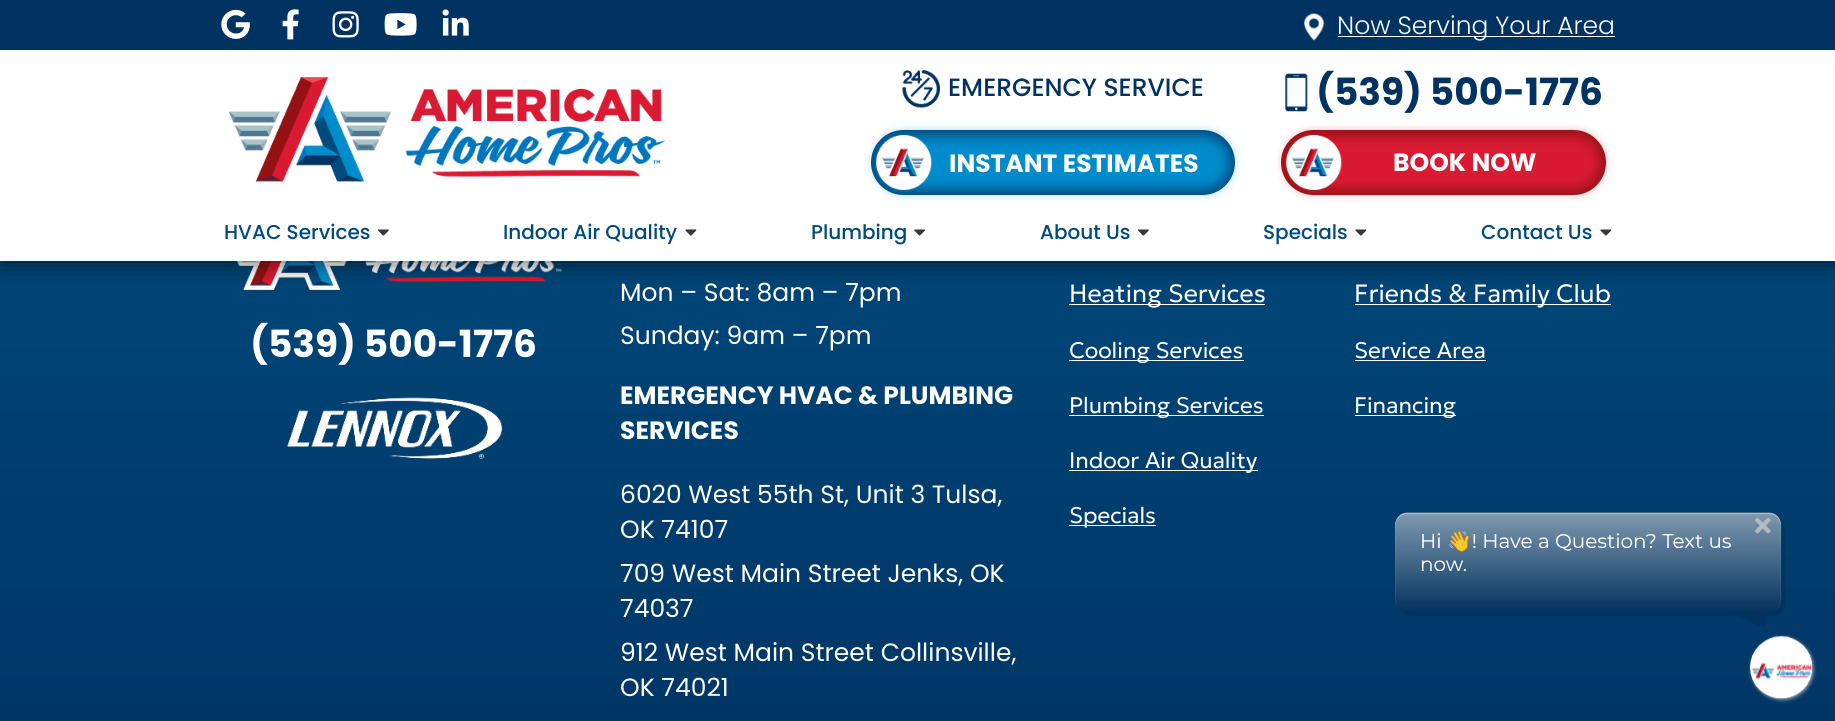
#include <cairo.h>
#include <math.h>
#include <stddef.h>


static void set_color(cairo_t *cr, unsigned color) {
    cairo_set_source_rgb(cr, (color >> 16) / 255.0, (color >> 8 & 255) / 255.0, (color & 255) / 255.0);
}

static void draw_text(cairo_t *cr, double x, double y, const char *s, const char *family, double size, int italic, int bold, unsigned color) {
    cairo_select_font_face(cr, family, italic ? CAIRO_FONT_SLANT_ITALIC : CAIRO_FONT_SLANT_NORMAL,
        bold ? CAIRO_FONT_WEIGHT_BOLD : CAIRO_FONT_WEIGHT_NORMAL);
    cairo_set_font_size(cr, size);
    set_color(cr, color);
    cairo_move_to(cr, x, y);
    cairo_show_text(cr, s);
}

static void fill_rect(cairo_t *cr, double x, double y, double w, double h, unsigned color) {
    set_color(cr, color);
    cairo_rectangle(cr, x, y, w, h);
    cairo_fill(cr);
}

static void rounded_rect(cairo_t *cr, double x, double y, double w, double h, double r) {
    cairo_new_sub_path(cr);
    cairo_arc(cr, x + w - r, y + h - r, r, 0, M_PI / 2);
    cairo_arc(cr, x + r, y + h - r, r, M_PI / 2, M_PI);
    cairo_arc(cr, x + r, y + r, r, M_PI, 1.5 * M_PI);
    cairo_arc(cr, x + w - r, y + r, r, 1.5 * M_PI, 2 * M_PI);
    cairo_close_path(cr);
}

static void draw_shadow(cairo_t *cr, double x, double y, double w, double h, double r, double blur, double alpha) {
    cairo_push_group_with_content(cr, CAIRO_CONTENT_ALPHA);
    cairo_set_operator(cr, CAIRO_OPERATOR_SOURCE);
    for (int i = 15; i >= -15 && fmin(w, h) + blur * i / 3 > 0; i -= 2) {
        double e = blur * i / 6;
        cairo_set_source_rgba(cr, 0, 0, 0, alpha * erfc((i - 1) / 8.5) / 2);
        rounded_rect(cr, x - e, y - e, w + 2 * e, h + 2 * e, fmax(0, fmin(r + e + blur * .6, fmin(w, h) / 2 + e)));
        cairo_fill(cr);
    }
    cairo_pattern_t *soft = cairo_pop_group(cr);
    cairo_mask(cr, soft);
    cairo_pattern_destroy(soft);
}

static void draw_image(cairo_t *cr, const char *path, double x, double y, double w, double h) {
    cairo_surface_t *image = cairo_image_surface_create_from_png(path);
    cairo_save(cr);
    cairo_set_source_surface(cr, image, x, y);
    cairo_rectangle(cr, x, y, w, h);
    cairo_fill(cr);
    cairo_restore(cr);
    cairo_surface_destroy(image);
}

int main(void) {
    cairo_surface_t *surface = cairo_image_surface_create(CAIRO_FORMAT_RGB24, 1835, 721);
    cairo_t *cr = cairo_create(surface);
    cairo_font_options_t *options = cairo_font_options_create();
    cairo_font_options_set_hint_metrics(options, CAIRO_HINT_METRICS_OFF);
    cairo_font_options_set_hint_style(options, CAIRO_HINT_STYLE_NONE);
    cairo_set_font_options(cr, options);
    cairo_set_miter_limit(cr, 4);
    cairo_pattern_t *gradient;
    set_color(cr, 0xFFFFFF);
    cairo_paint(cr);
    gradient = cairo_pattern_create_linear(918, 125, 918, 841);
    cairo_pattern_add_color_stop_rgba(gradient, 0, 0, 0.29, 0.486, 1);
    cairo_pattern_add_color_stop_rgba(gradient, 1, 0, 0.196, 0.384, 1);
    cairo_set_source(cr, gradient);
    cairo_pattern_destroy(gradient);
    cairo_rectangle(cr, 0, 261, 1835, 460);
    cairo_fill(cr);
    draw_image(cr, "assets/img15.png", 236, 261, 326, 29);
    set_color(cr, 0x000000);
    draw_shadow(cr, 0, 0, 1835, 261, 0, 12.5, 0.7);
    fill_rect(cr, 0, 0, 1835, 50, 0x003262);
    draw_image(cr, "assets/img1.png", 221, 9, 29, 30);
    draw_image(cr, "assets/img2.png", 282, 9, 17, 31);
    draw_image(cr, "assets/img3.png", 332, 11, 27, 27);
    draw_image(cr, "assets/img4.png", 384, 13, 33, 23);
    draw_image(cr, "assets/img5.png", 442, 9, 27, 27);
    draw_image(cr, "assets/img6.png", 1304, 13, 21, 28);
    fill_rect(cr, 1338, 36, 277, 1, 0xFFFFFF);
    draw_text(cr, 1337, 34, "Now Serving Your Area", "Poppins Light", 25, 0, 0, 0xFFFFFF);
    fill_rect(cr, 0, 50, 1835, 154, 0xFFFFFF);
    draw_image(cr, "assets/img7.png", 228, 77, 437, 105);
    draw_image(cr, "assets/img8.png", 902, 70, 38, 38);
    draw_text(cr, 948, 96, "EMERGENCY SERVICE", "Poppins Medium", 25, 0, 0, 0x003262);
    set_color(cr, 0x004A7C);
    rounded_rect(cr, 871, 130, 364, 65, 32.5);
    cairo_fill(cr);
    set_color(cr, 0x008CCC);
    draw_shadow(cr, 878, 136, 351, 53, 26.5, 6, 1);
    draw_image(cr, "assets/img9.png", 876, 135, 56, 55);
    draw_text(cr, 949, 172, "INSTANT ESTIMATES", "Poppins", 25, 0, 1, 0xFFFFFF);
    draw_image(cr, "assets/img10.png", 1285, 73, 23, 39);
    draw_text(cr, 1316, 105, "(539) 500-1776", "Poppins", 37.5, 0, 1, 0x003262);
    set_color(cr, 0x941114);
    rounded_rect(cr, 1281, 130, 325, 65, 32.5);
    cairo_fill(cr);
    set_color(cr, 0xDA1A32);
    draw_shadow(cr, 1288, 136, 312, 53, 26.5, 6, 1);
    draw_image(cr, "assets/img11.png", 1286, 135, 56, 55);
    draw_text(cr, 1393, 171, "BOOK NOW", "Poppins", 25, 0, 1, 0xFFFFFF);
    fill_rect(cr, 0, 204, 1835, 57, 0xFFFFFF);
    draw_text(cr, 224, 239, "HVAC Services", "Poppins Medium", 20, 0, 0, 0x004A7C);
    draw_image(cr, "assets/img12.png", 377, 229, 12, 7);
    draw_text(cr, 503, 239, "Indoor Air Quality", "Poppins Medium", 20, 0, 0, 0x004A7C);
    draw_image(cr, "assets/img13.png", 685, 229, 12, 7);
    draw_text(cr, 811, 239, "Plumbing", "Poppins Medium", 20, 0, 0, 0x004A7C);
    draw_image(cr, "assets/img14.png", 914, 229, 11, 7);
    draw_text(cr, 1040, 239, "About Us", "Poppins Medium", 20, 0, 0, 0x004A7C);
    draw_image(cr, "assets/img12.png", 1137, 229, 12, 7);
    draw_text(cr, 1263, 239, "Specials", "Poppins Medium", 20, 0, 0, 0x004A7C);
    draw_image(cr, "assets/img13.png", 1355, 229, 12, 7);
    draw_text(cr, 1481, 239, "Contact Us", "Poppins Medium", 20, 0, 0, 0x004A7C);
    draw_image(cr, "assets/img13.png", 1600, 229, 12, 7);
    draw_text(cr, 250, 357, "(539) 500-1776", "Poppins", 37.5, 0, 1, 0xFFFFFF);
    draw_image(cr, "assets/img16.png", 287, 397, 216, 62);
    draw_text(cr, 620, 301, "Mon – Sat: 8am – 7pm", "Poppins", 25, 0, 0, 0xFFFFFF);
    draw_text(cr, 620, 344, "Sunday: 9am – 7pm", "Poppins", 25, 0, 0, 0xFFFFFF);
    draw_text(cr, 620, 404, "EMERGENCY HVAC & PLUMBING", "Poppins", 25, 0, 1, 0xFFFFFF);
    draw_text(cr, 620, 439, "SERVICES", "Poppins", 25, 0, 1, 0xFFFFFF);
    draw_text(cr, 620, 503, "6020 West 55th St, Unit 3 Tulsa,", "Poppins", 25, 0, 0, 0xFFFFFF);
    draw_text(cr, 620, 538, "OK 74107", "Poppins", 25, 0, 0, 0xFFFFFF);
    draw_text(cr, 620, 582, "709 West Main Street Jenks, OK", "Poppins", 25, 0, 0, 0xFFFFFF);
    draw_text(cr, 620, 617, "74037", "Poppins", 25, 0, 0, 0xFFFFFF);
    draw_text(cr, 620, 661, "912 West Main Street Collinsville,", "Poppins", 25, 0, 0, 0xFFFFFF);
    draw_text(cr, 620, 696, "OK 74021", "Poppins", 25, 0, 0, 0xFFFFFF);
    fill_rect(cr, 1069, 304, 196, 1, 0xFFFFFF);
    draw_text(cr, 1069, 302, "Heating Services", "Geologica Light", 25, 0, 0, 0xFFFFFF);
    fill_rect(cr, 1069, 360, 175, 1, 0xFFFFFF);
    draw_text(cr, 1069, 358, "Cooling Services", "Geologica Light", 22.5, 0, 0, 0xFFFFFF);
    fill_rect(cr, 1069, 415, 195, 1, 0xFFFFFF);
    draw_text(cr, 1069, 413, "Plumbing Services", "Geologica Light", 22.5, 0, 0, 0xFFFFFF);
    fill_rect(cr, 1069, 470, 189, 1, 0xFFFFFF);
    draw_text(cr, 1069, 468, "Indoor Air Quality", "Geologica Light", 22.5, 0, 0, 0xFFFFFF);
    fill_rect(cr, 1069, 525, 87, 1, 0xFFFFFF);
    draw_text(cr, 1069, 523, "Specials", "Geologica Light", 22.5, 0, 0, 0xFFFFFF);
    fill_rect(cr, 1355, 304, 256, 1, 0xFFFFFF);
    draw_text(cr, 1354, 302, "Friends & Family Club", "Geologica Light", 25, 0, 0, 0xFFFFFF);
    draw_text(cr, 1354, 358, "Service Area", "Geologica Light", 22.5, 0, 0, 0xFFFFFF);
    fill_rect(cr, 1355, 360, 131, 1, 0xFFFFFF);
    fill_rect(cr, 1355, 415, 101, 1, 0xFFFFFF);
    draw_text(cr, 1354, 413, "Financing", "Geologica Light", 22.5, 0, 0, 0xFFFFFF);
    draw_image(cr, "assets/img17.png", 1395, 512, 390, 115);
    draw_image(cr, "assets/img18.png", 1748, 634, 69, 69);
    cairo_surface_write_to_png(surface, "output.png");
    cairo_font_options_destroy(options);
    cairo_destroy(cr);
    cairo_surface_destroy(surface);
    return 0;
}
